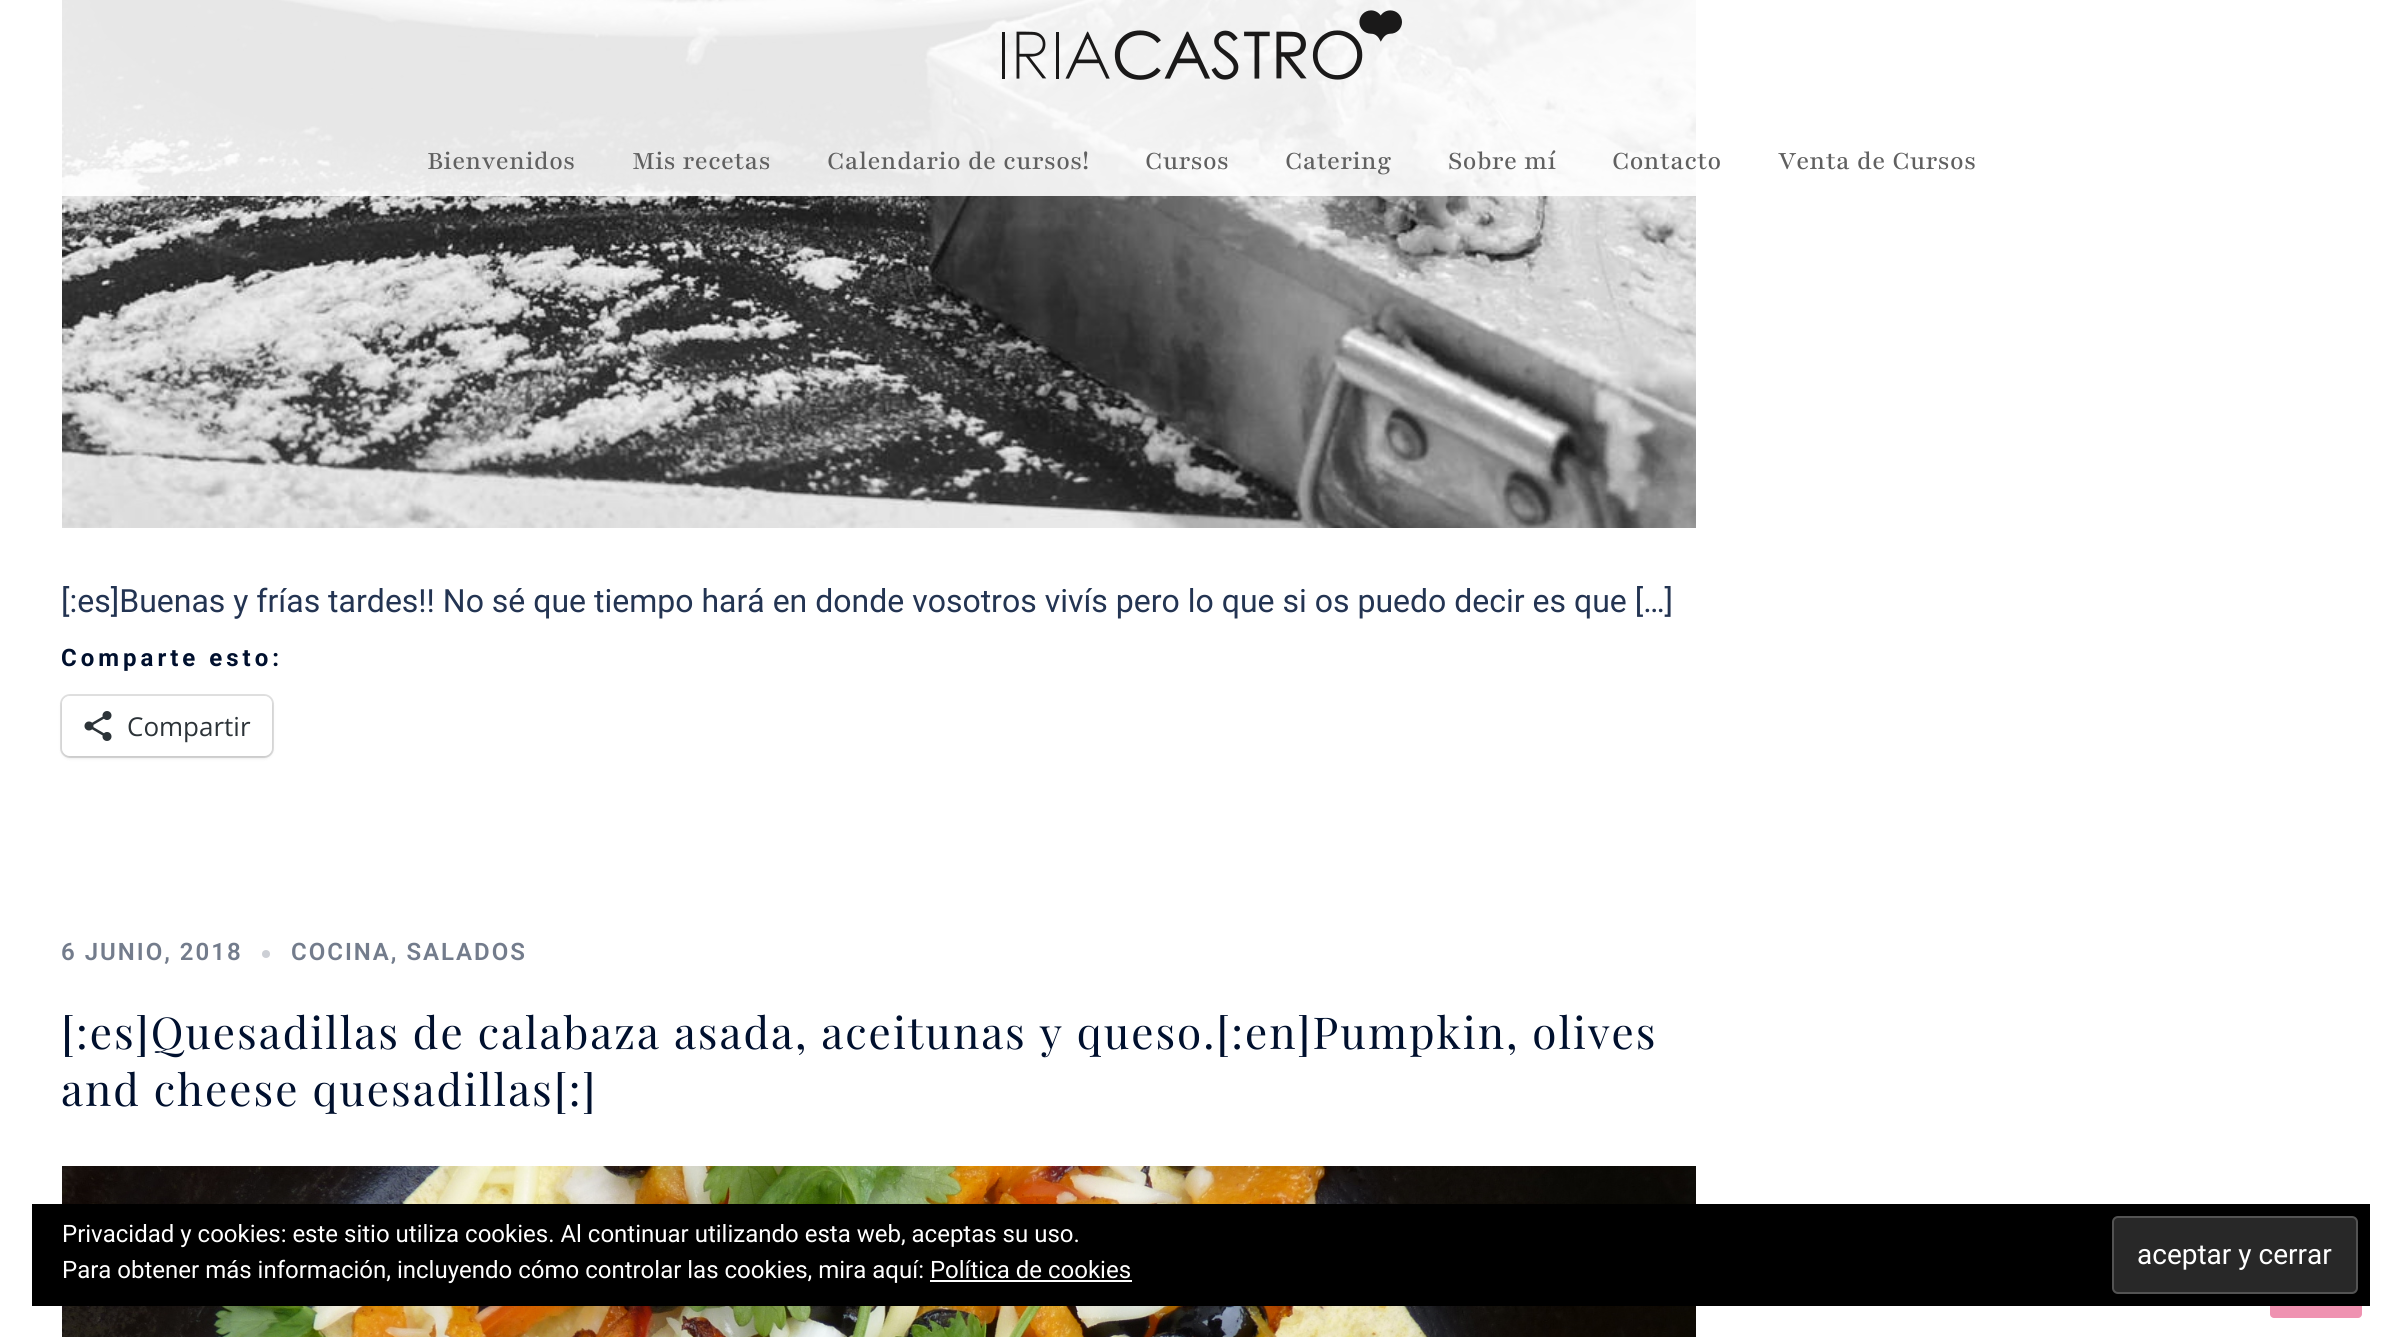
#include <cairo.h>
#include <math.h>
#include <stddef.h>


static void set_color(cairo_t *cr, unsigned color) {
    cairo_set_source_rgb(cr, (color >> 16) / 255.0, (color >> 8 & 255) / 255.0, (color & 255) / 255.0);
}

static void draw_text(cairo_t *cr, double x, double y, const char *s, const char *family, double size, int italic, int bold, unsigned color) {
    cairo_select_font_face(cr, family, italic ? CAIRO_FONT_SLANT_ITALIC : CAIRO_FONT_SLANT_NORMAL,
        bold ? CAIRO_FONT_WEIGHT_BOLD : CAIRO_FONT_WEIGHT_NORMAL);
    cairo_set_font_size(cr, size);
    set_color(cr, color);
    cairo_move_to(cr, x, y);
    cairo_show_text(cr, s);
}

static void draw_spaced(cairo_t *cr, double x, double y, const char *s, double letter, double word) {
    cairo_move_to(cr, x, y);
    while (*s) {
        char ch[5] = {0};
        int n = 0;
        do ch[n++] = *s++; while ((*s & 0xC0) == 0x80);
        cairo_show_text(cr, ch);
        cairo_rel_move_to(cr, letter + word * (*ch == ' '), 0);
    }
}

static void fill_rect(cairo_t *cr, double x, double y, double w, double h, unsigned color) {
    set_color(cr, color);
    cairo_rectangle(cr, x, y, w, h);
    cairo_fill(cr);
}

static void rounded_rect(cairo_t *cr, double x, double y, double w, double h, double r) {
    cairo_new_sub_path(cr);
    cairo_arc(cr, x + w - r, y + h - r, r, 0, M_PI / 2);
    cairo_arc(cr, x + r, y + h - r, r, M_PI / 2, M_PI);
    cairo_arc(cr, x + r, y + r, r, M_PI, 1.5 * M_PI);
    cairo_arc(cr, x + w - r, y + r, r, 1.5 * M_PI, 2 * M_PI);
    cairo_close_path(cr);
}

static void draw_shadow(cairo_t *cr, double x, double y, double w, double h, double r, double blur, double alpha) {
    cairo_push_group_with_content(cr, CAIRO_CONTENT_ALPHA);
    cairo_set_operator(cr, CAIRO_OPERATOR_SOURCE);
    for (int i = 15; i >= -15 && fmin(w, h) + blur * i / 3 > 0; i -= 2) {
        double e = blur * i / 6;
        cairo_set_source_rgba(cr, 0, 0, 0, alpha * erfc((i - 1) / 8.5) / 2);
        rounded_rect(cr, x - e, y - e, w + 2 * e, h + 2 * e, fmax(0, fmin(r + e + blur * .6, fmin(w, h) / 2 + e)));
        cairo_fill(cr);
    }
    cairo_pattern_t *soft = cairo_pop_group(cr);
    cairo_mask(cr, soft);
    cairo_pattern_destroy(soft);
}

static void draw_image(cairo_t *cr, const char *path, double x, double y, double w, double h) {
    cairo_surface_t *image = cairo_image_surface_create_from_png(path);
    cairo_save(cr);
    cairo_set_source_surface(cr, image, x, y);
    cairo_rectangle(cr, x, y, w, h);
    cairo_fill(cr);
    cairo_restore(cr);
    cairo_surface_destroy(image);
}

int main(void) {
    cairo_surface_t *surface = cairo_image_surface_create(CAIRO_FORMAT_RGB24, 2401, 1337);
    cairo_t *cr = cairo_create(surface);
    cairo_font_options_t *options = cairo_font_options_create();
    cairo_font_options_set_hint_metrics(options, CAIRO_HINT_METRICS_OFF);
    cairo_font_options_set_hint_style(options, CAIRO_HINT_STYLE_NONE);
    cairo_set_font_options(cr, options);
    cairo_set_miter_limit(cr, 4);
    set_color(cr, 0xFFFFFF);
    cairo_paint(cr);
    draw_image(cr, "assets/img2.png", 62, 0, 1634, 528);
    cairo_set_source_rgba(cr, 1, 1, 1, 0.9);
    cairo_rectangle(cr, 62, 0, 1634, 196);
    cairo_fill(cr);
    draw_image(cr, "assets/img1.png", 1002, 10, 400, 70);
    draw_text(cr, 427, 169, "Bienvenidos", "Playfair Medium", 28, 0, 0, 0x606060);
    draw_spaced(cr, 632, 169, "Mis recetas", 0, 1);
    draw_spaced(cr, 827, 169, "Calendario de cursos!", 0, 1);
    draw_text(cr, 1145, 169, "Cursos", "Playfair Medium", 28, 0, 0, 0x606060);
    draw_text(cr, 1285, 169, "Catering", "Playfair Medium", 28, 0, 0, 0x606060);
    draw_spaced(cr, 1448, 169, "Sobre mí", 0, 1);
    draw_text(cr, 1612, 169, "Contacto", "Playfair Medium", 28, 0, 0, 0x606060);
    draw_spaced(cr, 1778, 169, "Venta de Cursos", 0, 1);
    draw_text(cr, 61, 612, "[:es]Buenas y frías tardes!! No sé que tiempo hará en donde vosotros vivís pero lo que si os puedo decir es que […]", "Roboto", 32, 0, 0, 0x233452);
    cairo_select_font_face(cr, "Roboto", CAIRO_FONT_SLANT_NORMAL, CAIRO_FONT_WEIGHT_BOLD);
    cairo_set_font_size(cr, 24);
    set_color(cr, 0x00102E);
    draw_spaced(cr, 61, 666, "Comparte esto:", 4, 0);
    rounded_rect(cr, 61, 695, 212, 62, 9);
    set_color(cr, 0xE0E0E0);
    cairo_stroke(cr);
    set_color(cr, 0x000000);
    draw_shadow(cr, 62, 698, 210, 60, 8, 2, 0.12);
    set_color(cr, 0xFFFFFF);
    rounded_rect(cr, 62, 696, 210, 60, 8);
    cairo_fill(cr);
    draw_image(cr, "assets/img3.png", 84, 711, 28, 30);
    draw_text(cr, 127, 736, "Compartir", "Open Sans", 26, 0, 0, 0x2C3338);
    cairo_select_font_face(cr, "Roboto SemiBold", CAIRO_FONT_SLANT_NORMAL, CAIRO_FONT_WEIGHT_NORMAL);
    cairo_set_font_size(cr, 24);
    set_color(cr, 0x737C8C);
    draw_spaced(cr, 61, 960, "6 JUNIO, 2018", 2, 0);
    set_color(cr, 0xCCCFD5);
    cairo_new_path(cr);
    cairo_arc(cr, 266, 954, 4, 0, 2 * M_PI);
    cairo_fill(cr);
    set_color(cr, 0x737C8C);
    draw_spaced(cr, 291, 960, "COCINA, SALADOS", 2, 0);
    cairo_select_font_face(cr, "Playfair Display", CAIRO_FONT_SLANT_NORMAL, CAIRO_FONT_WEIGHT_NORMAL);
    cairo_set_font_size(cr, 44);
    set_color(cr, 0x00102E);
    draw_spaced(cr, 61, 1049, "[:es]Quesadillas de calabaza asada, aceitunas y queso.[:en]Pumpkin, olives", 2, 0);
    draw_spaced(cr, 61, 1106, "and cheese quesadillas[:]", 2, 0);
    draw_image(cr, "assets/img4.png", 62, 1166, 1634, 171);
    set_color(cr, 0xEF92B1);
    rounded_rect(cr, 2270, 1226, 92, 92, 4);
    cairo_fill(cr);
    fill_rect(cr, 32, 1204, 2338, 102, 0x000000);
    draw_text(cr, 62, 1242, "Privacidad y cookies: este sitio utiliza cookies. Al continuar utilizando esta web, aceptas su uso.", "Roboto", 24, 0, 0, 0xFFFFFF);
    draw_text(cr, 62, 1278, "Para obtener más información, incluyendo cómo controlar las cookies, mira aquí: Política de cookies", "Roboto", 24, 0, 0, 0xFFFFFF);
    set_color(cr, 0x282828);
    rounded_rect(cr, 2113, 1217, 244, 76, 5);
    cairo_fill_preserve(cr);
    set_color(cr, 0x535353);
    cairo_stroke(cr);
    draw_text(cr, 2137, 1264, "aceptar y cerrar", "Roboto", 28, 0, 0, 0xFFFFFF);
    fill_rect(cr, 930, 1280, 202, 2, 0xFFFFFF);
    cairo_surface_write_to_png(surface, "output.png");
    cairo_font_options_destroy(options);
    cairo_destroy(cr);
    cairo_surface_destroy(surface);
    return 0;
}
